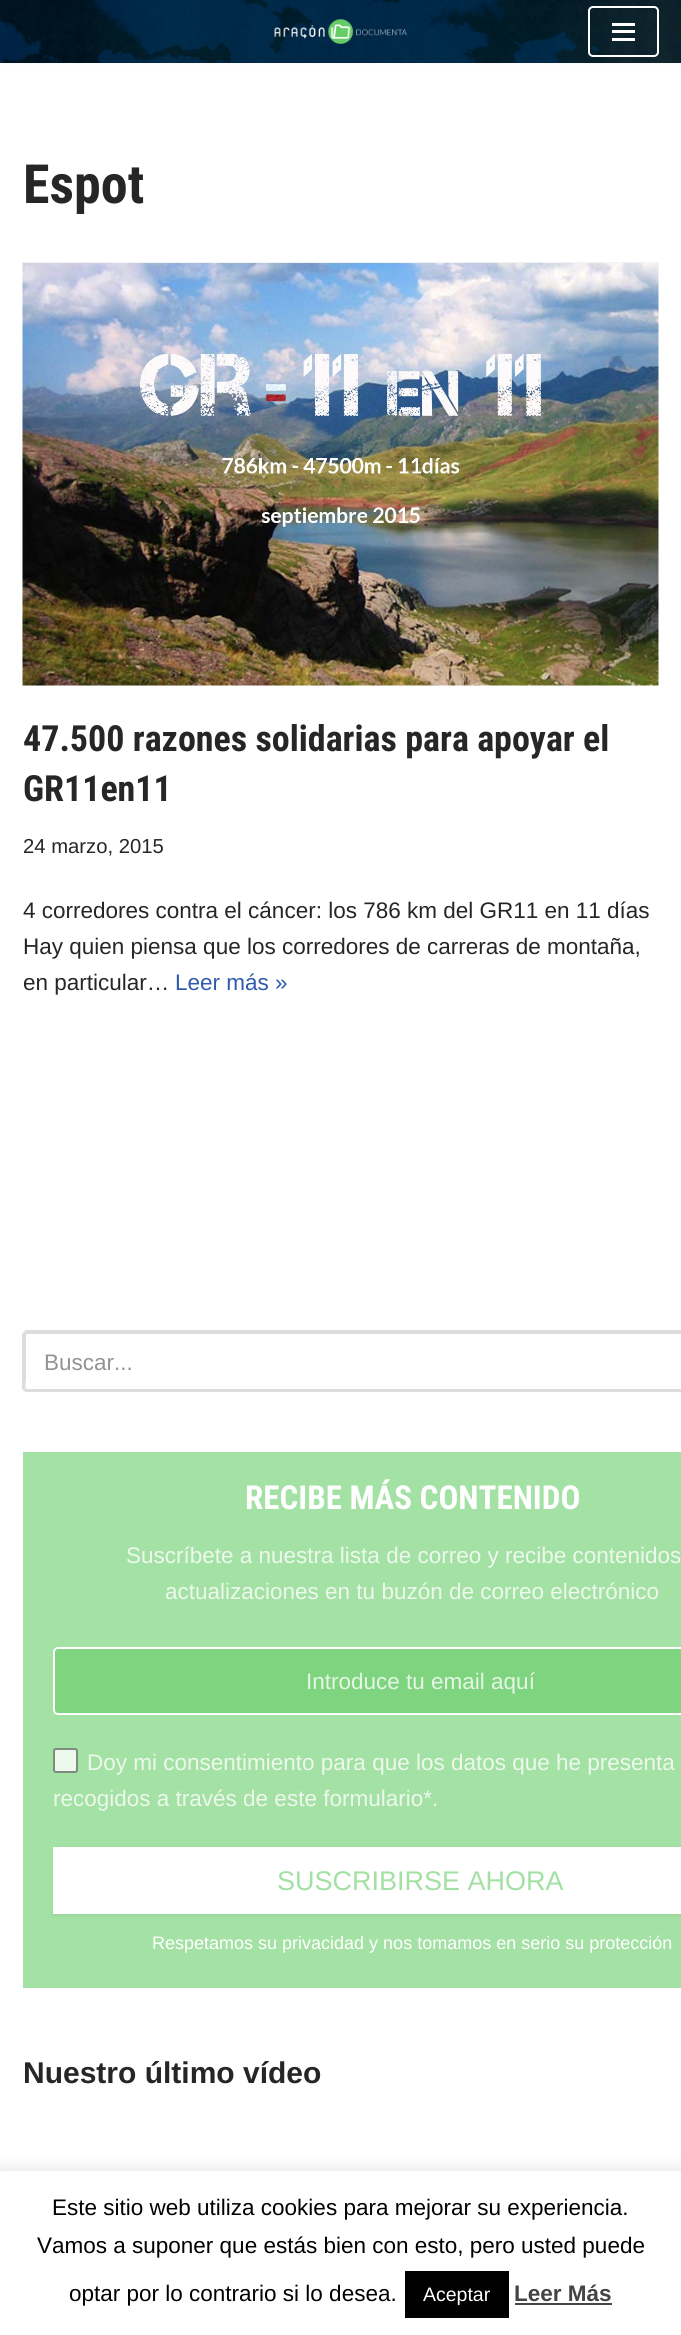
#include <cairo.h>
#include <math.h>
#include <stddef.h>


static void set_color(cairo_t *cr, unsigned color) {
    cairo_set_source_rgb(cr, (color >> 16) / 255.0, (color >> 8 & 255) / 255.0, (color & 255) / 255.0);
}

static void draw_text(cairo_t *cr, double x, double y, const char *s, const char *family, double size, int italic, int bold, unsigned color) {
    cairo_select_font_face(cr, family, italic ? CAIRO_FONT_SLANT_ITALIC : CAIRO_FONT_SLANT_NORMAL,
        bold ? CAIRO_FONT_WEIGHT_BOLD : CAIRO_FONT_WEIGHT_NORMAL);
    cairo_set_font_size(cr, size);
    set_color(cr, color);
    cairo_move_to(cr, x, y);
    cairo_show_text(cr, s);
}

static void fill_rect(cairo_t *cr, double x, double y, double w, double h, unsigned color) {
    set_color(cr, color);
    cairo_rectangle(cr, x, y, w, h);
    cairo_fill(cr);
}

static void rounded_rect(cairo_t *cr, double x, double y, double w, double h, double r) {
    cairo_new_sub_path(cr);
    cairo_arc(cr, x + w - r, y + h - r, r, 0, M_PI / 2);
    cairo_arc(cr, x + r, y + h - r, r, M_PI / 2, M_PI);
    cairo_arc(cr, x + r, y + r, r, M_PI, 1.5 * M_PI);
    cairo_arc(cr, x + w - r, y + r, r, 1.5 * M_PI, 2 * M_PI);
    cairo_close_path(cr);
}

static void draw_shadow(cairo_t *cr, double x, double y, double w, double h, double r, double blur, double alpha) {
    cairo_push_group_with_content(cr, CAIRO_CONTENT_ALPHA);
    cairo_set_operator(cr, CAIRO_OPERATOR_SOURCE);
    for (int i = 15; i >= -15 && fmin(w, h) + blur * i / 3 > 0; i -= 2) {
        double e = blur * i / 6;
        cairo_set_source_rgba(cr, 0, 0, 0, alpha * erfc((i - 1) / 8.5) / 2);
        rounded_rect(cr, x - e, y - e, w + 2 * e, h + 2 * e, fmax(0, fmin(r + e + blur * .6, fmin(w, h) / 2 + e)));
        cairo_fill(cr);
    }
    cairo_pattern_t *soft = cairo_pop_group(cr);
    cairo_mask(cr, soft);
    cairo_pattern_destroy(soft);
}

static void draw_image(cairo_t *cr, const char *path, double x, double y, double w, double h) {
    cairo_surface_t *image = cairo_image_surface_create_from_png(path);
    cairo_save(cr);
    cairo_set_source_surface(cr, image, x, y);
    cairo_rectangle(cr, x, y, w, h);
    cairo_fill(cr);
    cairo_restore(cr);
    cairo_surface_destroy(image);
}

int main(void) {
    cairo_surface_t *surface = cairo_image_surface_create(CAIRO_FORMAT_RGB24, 681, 2335);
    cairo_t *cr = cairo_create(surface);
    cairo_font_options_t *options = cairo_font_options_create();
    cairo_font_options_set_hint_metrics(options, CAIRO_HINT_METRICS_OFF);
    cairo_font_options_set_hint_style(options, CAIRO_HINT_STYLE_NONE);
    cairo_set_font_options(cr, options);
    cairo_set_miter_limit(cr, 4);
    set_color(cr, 0xFFFFFF);
    cairo_paint(cr);
    set_color(cr, 0x000000);
    draw_shadow(cr, 0, -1, 681, 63, 0, 2, 0.1);
    draw_image(cr, "assets/img1.png", 0, 0, 681, 63);
    rounded_rect(cr, 589, 7, 69, 49, 4);
    set_color(cr, 0xFFFFFF);
    cairo_stroke(cr);
    fill_rect(cr, 612, 23, 23, 3, 0xFFFFFF);
    fill_rect(cr, 612, 30, 23, 3, 0xFFFFFF);
    fill_rect(cr, 612, 38, 23, 3, 0xFFFFFF);
    draw_text(cr, 23, 203, "Espot", "Roboto Condensed", 54, 0, 1, 0x272626);
    draw_image(cr, "assets/img2.png", 22, 262, 637, 424);
    draw_text(cr, 23, 751, "47.500 razones solidarias para apoyar el", "Roboto Condensed", 36, 0, 1, 0x272626);
    draw_text(cr, 23, 801, "GR11en11", "Roboto Condensed", 36, 0, 1, 0x272626);
    draw_text(cr, 23, 853, "24 marzo, 2015", "Liberation Sans", 20.25, 0, 0, 0x272626);
    draw_text(cr, 23, 918, "4 corredores contra el cáncer: los 786 km del GR11 en 11 días", "Liberation Sans", 22.5, 0, 0, 0x272626);
    draw_text(cr, 23, 954, "Hay quien piensa que los corredores de carreras de montaña,", "Liberation Sans", 22.5, 0, 0, 0x272626);
    draw_text(cr, 23, 990, "en particular…", "Liberation Sans", 22.5, 0, 0, 0x272626);
    draw_text(cr, 175, 990, "Leer más »", "Liberation Sans", 22.5, 0, 0, 0x2F5AAE);
    set_color(cr, 0xDDDDDD);
    cairo_set_fill_rule(cr, CAIRO_FILL_RULE_EVEN_ODD);
    cairo_new_path(cr);
    cairo_move_to(cr, 27, 1330);
    cairo_line_to(cr, 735, 1330);
    cairo_line_to(cr, 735, 1392);
    cairo_line_to(cr, 27, 1392);
    cairo_curve_to(cr, 25, 1392, 22, 1390, 22, 1388);
    cairo_line_to(cr, 22, 1335);
    cairo_curve_to(cr, 22, 1333, 25, 1330, 27, 1330);
    cairo_close_path(cr);
    cairo_move_to(cr, 27, 1334);
    cairo_line_to(cr, 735, 1334);
    cairo_line_to(cr, 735, 1389);
    cairo_line_to(cr, 27, 1389);
    cairo_curve_to(cr, 24, 1389, 26, 1382, 26, 1379);
    cairo_line_to(cr, 26, 1335);
    cairo_close_path(cr);
    cairo_fill(cr);
    draw_text(cr, 44, 1370, "Buscar...", "Liberation Sans", 22.5, 0, 0, 0x939393);
    fill_rect(cr, 23, 1452, 658, 536, 0xA4E1A4);
    draw_text(cr, 245, 1509, "RECIBE MÁS CONTENIDO", "Roboto Condensed", 33, 0, 1, 0xFFFFFF);
    draw_text(cr, 126, 1563, "Suscríbete a nuestra lista de correo y recibe contenidos", "Liberation Sans", 22.5, 0, 0, 0xEDF9ED);
    draw_text(cr, 165, 1599, "actualizaciones en tu buzón de correo electrónico", "Liberation Sans", 22.5, 0, 0, 0xEDF9ED);
    set_color(cr, 0x7FD47F);
    cairo_new_path(cr);
    cairo_move_to(cr, 58, 1647);
    cairo_line_to(cr, 681, 1647);
    cairo_line_to(cr, 681, 1715);
    cairo_line_to(cr, 58, 1715);
    cairo_curve_to(cr, 55, 1715, 53, 1713, 53, 1710);
    cairo_line_to(cr, 53, 1652);
    cairo_curve_to(cr, 53, 1649, 55, 1647, 58, 1647);
    cairo_close_path(cr);
    cairo_fill(cr);
    rounded_rect(cr, 54, 1648, 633, 66, 4);
    set_color(cr, 0xFFFFFF);
    cairo_stroke(cr);
    draw_text(cr, 306, 1689, "Introduce tu email aquí", "Liberation Sans", 22.5, 0, 0, 0xE5F6E5);
    set_color(cr, 0xEDF9ED);
    rounded_rect(cr, 54, 1749, 23, 23, 2);
    cairo_fill_preserve(cr);
    set_color(cr, 0x7F8B7F);
    cairo_stroke(cr);
    draw_text(cr, 87, 1770, "Doy mi consentimiento para que los datos que he presenta", "Liberation Sans", 22.5, 0, 0, 0xEDF9ED);
    draw_text(cr, 53, 1806, "recogidos a través de este formulario*.", "Liberation Sans", 22.5, 0, 0, 0xEDF9ED);
    set_color(cr, 0x000000);
    draw_shadow(cr, 53, 1848, 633, 68, 0, 1.5, 0.05);
    fill_rect(cr, 53, 1847, 628, 67, 0xFFFFFF);
    draw_text(cr, 277, 1890, "SUSCRIBIRSE AHORA", "Liberation Sans", 27, 0, 0, 0xA3E0A3);
    draw_text(cr, 152, 1949, "Respetamos su privacidad y nos tomamos en serio su protección", "Liberation Sans", 18, 0, 0, 0xFFFFFF);
    draw_text(cr, 23, 2083, "Nuestro último vídeo", "Liberation Sans", 30, 0, 1, 0x272626);
    cairo_save(cr);
    cairo_set_fill_rule(cr, CAIRO_FILL_RULE_WINDING);
    cairo_rectangle(cr, 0, 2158, 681, 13);
    cairo_clip(cr);
    set_color(cr, 0xACABAB);
    draw_shadow(cr, 0, 2169, 681, 165, 0, 7.5, 0.3);
    cairo_restore(cr);
    draw_text(cr, 52, 2215, "Este sitio web utiliza cookies para mejorar su experiencia.", "Liberation Sans", 22.5, 0, 0, 0x000000);
    draw_text(cr, 37, 2253, "Vamos a suponer que estás bien con esto, pero usted puede", "Liberation Sans", 22.5, 0, 0, 0x000000);
    draw_text(cr, 69, 2301, "optar por lo contrario si lo desea.", "Liberation Sans", 22.5, 0, 0, 0x000000);
    fill_rect(cr, 405, 2271, 104, 47, 0x000000);
    draw_text(cr, 423, 2301, "Aceptar", "Liberation Sans", 19.5, 0, 0, 0xFFFFFF);
    draw_text(cr, 514, 2301, "Leer Más", "Liberation Sans", 22.5, 0, 1, 0x444444);
    fill_rect(cr, 515, 2303, 97, 2, 0x444444);
    cairo_surface_write_to_png(surface, "output.png");
    cairo_font_options_destroy(options);
    cairo_destroy(cr);
    cairo_surface_destroy(surface);
    return 0;
}
